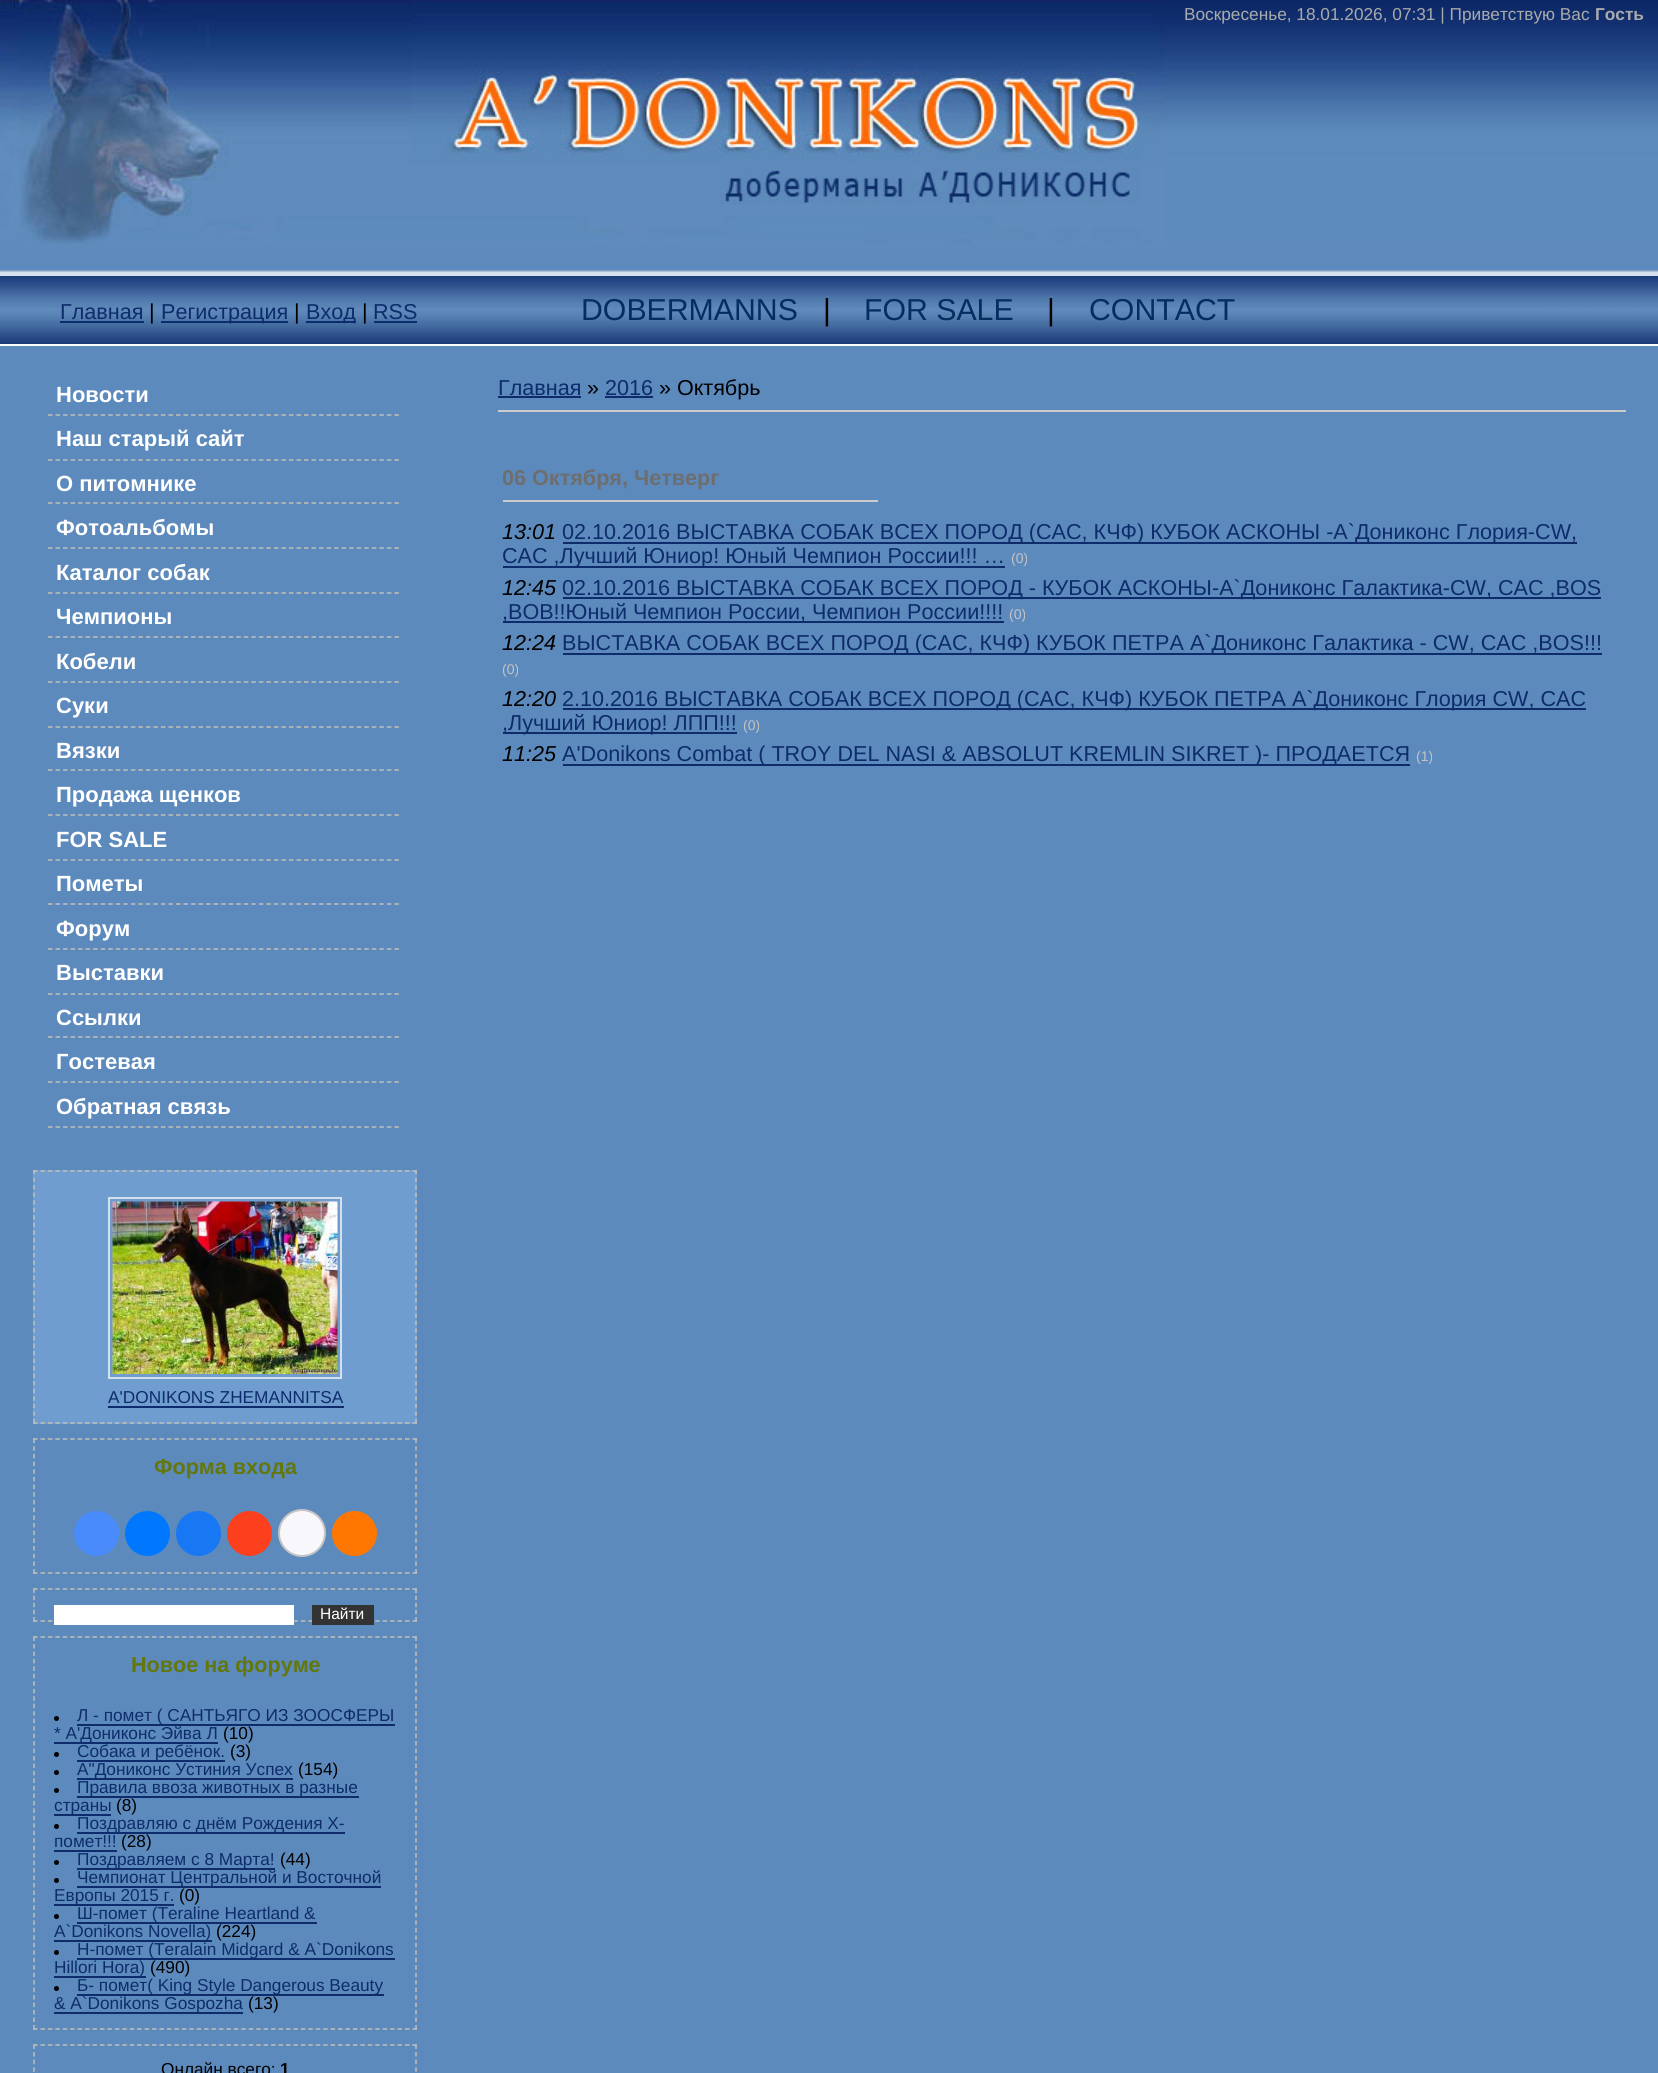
#include <cairo.h>
#include <math.h>
#include <stddef.h>


static void set_color(cairo_t *cr, unsigned color) {
    cairo_set_source_rgb(cr, (color >> 16) / 255.0, (color >> 8 & 255) / 255.0, (color & 255) / 255.0);
}

static void draw_text(cairo_t *cr, double x, double y, const char *s, const char *family, double size, int italic, int bold, unsigned color) {
    cairo_select_font_face(cr, family, italic ? CAIRO_FONT_SLANT_ITALIC : CAIRO_FONT_SLANT_NORMAL,
        bold ? CAIRO_FONT_WEIGHT_BOLD : CAIRO_FONT_WEIGHT_NORMAL);
    cairo_set_font_size(cr, size);
    set_color(cr, color);
    cairo_move_to(cr, x, y);
    cairo_show_text(cr, s);
}

static void fill_rect(cairo_t *cr, double x, double y, double w, double h, unsigned color) {
    set_color(cr, color);
    cairo_rectangle(cr, x, y, w, h);
    cairo_fill(cr);
}

static void draw_image(cairo_t *cr, const char *path, double x, double y, double w, double h) {
    cairo_surface_t *image = cairo_image_surface_create_from_png(path);
    cairo_save(cr);
    cairo_set_source_surface(cr, image, x, y);
    cairo_rectangle(cr, x, y, w, h);
    cairo_fill(cr);
    cairo_restore(cr);
    cairo_surface_destroy(image);
}

int main(void) {
    cairo_surface_t *surface = cairo_image_surface_create(CAIRO_FORMAT_RGB24, 1658, 2073);
    cairo_t *cr = cairo_create(surface);
    cairo_font_options_t *options = cairo_font_options_create();
    cairo_font_options_set_hint_metrics(options, CAIRO_HINT_METRICS_OFF);
    cairo_font_options_set_hint_style(options, CAIRO_HINT_STYLE_NONE);
    cairo_set_font_options(cr, options);
    cairo_set_miter_limit(cr, 4);
    set_color(cr, 0x5C8ABC);
    cairo_paint(cr);
    draw_image(cr, "assets/img1.png", 0, 0, 1658, 276);
    draw_image(cr, "assets/img2.png", 0, 0, 1164, 244);
    draw_text(cr, 1184, 20, "Воскресенье, 18.01.2026, 07:31 | Приветствую Вас", "Liberation Sans", 17.25, 0, 0, 0xAAAAAA);
    draw_text(cr, 1595, 20, "Гость", "Liberation Sans", 17.25, 0, 1, 0xAAAAAA);
    draw_image(cr, "assets/img3.png", 0, 276, 1658, 68);
    fill_rect(cr, 0, 344, 1658, 2, 0xFFFFFF);
    draw_text(cr, 60, 319, "Главная", "Liberation Sans", 21.6, 0, 0, 0x0E2C6B);
    fill_rect(cr, 60, 321, 84, 2, 0x0E2C6B);
    draw_text(cr, 149, 319, "|", "Liberation Sans", 21.6, 0, 0, 0x000000);
    fill_rect(cr, 161, 321, 127, 2, 0x0E2C6B);
    draw_text(cr, 161, 319, "Регистрация", "Liberation Sans", 21.6, 0, 0, 0x0E2C6B);
    draw_text(cr, 294, 319, "|", "Liberation Sans", 21.6, 0, 0, 0x000000);
    fill_rect(cr, 306, 321, 50, 2, 0x0E2C6B);
    draw_text(cr, 306, 319, "Вход", "Liberation Sans", 21.6, 0, 0, 0x0E2C6B);
    draw_text(cr, 362, 319, "|", "Liberation Sans", 21.6, 0, 0, 0x000000);
    draw_text(cr, 373, 319, "RSS", "Liberation Sans", 21.6, 0, 0, 0x0E2C6B);
    fill_rect(cr, 374, 321, 43, 2, 0x0E2C6B);
    draw_text(cr, 581, 320, "DOBERMANNS", "Liberation Sans", 30.25, 0, 0, 0x042E5F);
    draw_text(cr, 823, 320, "|", "Liberation Sans", 30.25, 0, 0, 0x000000);
    draw_text(cr, 864, 320, "FOR SALE", "Liberation Sans", 30.25, 0, 0, 0x042E5F);
    draw_text(cr, 1047, 320, "|", "Liberation Sans", 30.25, 0, 0, 0x000000);
    draw_text(cr, 1089, 320, "CONTACT", "Liberation Sans", 30.25, 0, 0, 0x042E5F);
    cairo_new_path(cr);
    cairo_move_to(cr, 48, 415);
    cairo_line_to(cr, 399, 415);
    set_color(cr, 0xC0BFB8);
    cairo_set_line_width(cr, 1.5);
    cairo_set_dash(cr, (double[]){4.5, 3.03}, 2, 0);
    cairo_stroke(cr);
    draw_text(cr, 56, 402, "Новости", "Liberation Sans", 22, 0, 1, 0xFFFFFF);
    cairo_new_path(cr);
    cairo_move_to(cr, 48, 460);
    cairo_line_to(cr, 399, 460);
    set_color(cr, 0xC0BFB8);
    cairo_stroke(cr);
    draw_text(cr, 56, 446, "Наш старый сайт", "Liberation Sans", 22, 0, 1, 0xFFFFFF);
    cairo_new_path(cr);
    cairo_move_to(cr, 48, 503);
    cairo_line_to(cr, 399, 503);
    set_color(cr, 0xC0BFB8);
    cairo_stroke(cr);
    draw_text(cr, 56, 491, "О питомнике", "Liberation Sans", 22, 0, 1, 0xFFFFFF);
    cairo_new_path(cr);
    cairo_move_to(cr, 48, 548);
    cairo_line_to(cr, 399, 548);
    set_color(cr, 0xC0BFB8);
    cairo_stroke(cr);
    draw_text(cr, 56, 535, "Фотоальбомы", "Liberation Sans", 22, 0, 1, 0xFFFFFF);
    cairo_new_path(cr);
    cairo_move_to(cr, 48, 593);
    cairo_line_to(cr, 399, 593);
    set_color(cr, 0xC0BFB8);
    cairo_stroke(cr);
    draw_text(cr, 56, 580, "Каталог собак", "Liberation Sans", 22, 0, 1, 0xFFFFFF);
    cairo_new_path(cr);
    cairo_move_to(cr, 48, 637);
    cairo_line_to(cr, 399, 637);
    set_color(cr, 0xC0BFB8);
    cairo_stroke(cr);
    draw_text(cr, 56, 624, "Чемпионы", "Liberation Sans", 22, 0, 1, 0xFFFFFF);
    cairo_new_path(cr);
    cairo_move_to(cr, 48, 682);
    cairo_line_to(cr, 399, 682);
    set_color(cr, 0xC0BFB8);
    cairo_stroke(cr);
    draw_text(cr, 56, 669, "Кобели", "Liberation Sans", 22, 0, 1, 0xFFFFFF);
    cairo_new_path(cr);
    cairo_move_to(cr, 48, 727);
    cairo_line_to(cr, 399, 727);
    set_color(cr, 0xC0BFB8);
    cairo_stroke(cr);
    draw_text(cr, 56, 713, "Суки", "Liberation Sans", 22, 0, 1, 0xFFFFFF);
    cairo_new_path(cr);
    cairo_move_to(cr, 48, 770);
    cairo_line_to(cr, 399, 770);
    set_color(cr, 0xC0BFB8);
    cairo_stroke(cr);
    draw_text(cr, 56, 758, "Вязки", "Liberation Sans", 22, 0, 1, 0xFFFFFF);
    cairo_new_path(cr);
    cairo_move_to(cr, 48, 815);
    cairo_line_to(cr, 399, 815);
    set_color(cr, 0xC0BFB8);
    cairo_stroke(cr);
    draw_text(cr, 56, 802, "Продажа щенков", "Liberation Sans", 22, 0, 1, 0xFFFFFF);
    cairo_new_path(cr);
    cairo_move_to(cr, 48, 860);
    cairo_line_to(cr, 399, 860);
    set_color(cr, 0xC0BFB8);
    cairo_stroke(cr);
    draw_text(cr, 56, 847, "FOR SALE", "Liberation Sans", 22, 0, 1, 0xFFFFFF);
    cairo_new_path(cr);
    cairo_move_to(cr, 48, 904);
    cairo_line_to(cr, 399, 904);
    set_color(cr, 0xC0BFB8);
    cairo_stroke(cr);
    draw_text(cr, 56, 891, "Пометы", "Liberation Sans", 22, 0, 1, 0xFFFFFF);
    cairo_new_path(cr);
    cairo_move_to(cr, 48, 949);
    cairo_line_to(cr, 399, 949);
    set_color(cr, 0xC0BFB8);
    cairo_stroke(cr);
    draw_text(cr, 56, 936, "Форум", "Liberation Sans", 22, 0, 1, 0xFFFFFF);
    cairo_new_path(cr);
    cairo_move_to(cr, 48, 994);
    cairo_line_to(cr, 399, 994);
    set_color(cr, 0xC0BFB8);
    cairo_stroke(cr);
    draw_text(cr, 56, 980, "Выставки", "Liberation Sans", 22, 0, 1, 0xFFFFFF);
    cairo_new_path(cr);
    cairo_move_to(cr, 48, 1037);
    cairo_line_to(cr, 399, 1037);
    set_color(cr, 0xC0BFB8);
    cairo_stroke(cr);
    draw_text(cr, 56, 1025, "Ссылки", "Liberation Sans", 22, 0, 1, 0xFFFFFF);
    cairo_new_path(cr);
    cairo_move_to(cr, 48, 1082);
    cairo_line_to(cr, 399, 1082);
    set_color(cr, 0xC0BFB8);
    cairo_stroke(cr);
    draw_text(cr, 56, 1069, "Гостевая", "Liberation Sans", 22, 0, 1, 0xFFFFFF);
    cairo_new_path(cr);
    cairo_move_to(cr, 48, 1127);
    cairo_line_to(cr, 399, 1127);
    set_color(cr, 0xC0BFB8);
    cairo_stroke(cr);
    draw_text(cr, 56, 1114, "Обратная связь", "Liberation Sans", 22, 0, 1, 0xFFFFFF);
    fill_rect(cr, 33, 1170, 384, 254, 0x6F9DCF);
    cairo_new_path(cr);
    cairo_move_to(cr, 33, 1171);
    cairo_line_to(cr, 417, 1171);
    set_color(cr, 0xC0BFB8);
    cairo_set_dash(cr, (double[]){4.5, 2.94}, 2, 0);
    cairo_stroke(cr);
    cairo_new_path(cr);
    cairo_move_to(cr, 416, 1170);
    cairo_line_to(cr, 416, 1423.5);
    cairo_set_dash(cr, (double[]){4.5, 3.04}, 2, 0);
    cairo_stroke(cr);
    cairo_new_path(cr);
    cairo_move_to(cr, 33, 1423);
    cairo_line_to(cr, 417, 1423);
    cairo_set_dash(cr, (double[]){4.5, 2.94}, 2, 0);
    cairo_stroke(cr);
    cairo_new_path(cr);
    cairo_move_to(cr, 34, 1170);
    cairo_line_to(cr, 34, 1423.5);
    cairo_set_dash(cr, (double[]){4.5, 3.04}, 2, 0);
    cairo_stroke(cr);
    cairo_rectangle(cr, 109, 1198, 232, 180);
    set_color(cr, 0xD5E0ED);
    cairo_set_line_width(cr, 2);
    cairo_set_dash(cr, NULL, 0, 0);
    cairo_stroke(cr);
    draw_image(cr, "assets/img4.png", 112, 1201, 226, 173);
    draw_text(cr, 108, 1403, "A'DONIKONS ZHEMANNITSA", "Liberation Sans", 17.25, 0, 0, 0x0E2C6B);
    fill_rect(cr, 108, 1406, 236, 2, 0x0E2C6B);
    cairo_new_path(cr);
    cairo_move_to(cr, 33, 1439);
    cairo_line_to(cr, 417, 1439);
    set_color(cr, 0xC0BFB8);
    cairo_set_line_width(cr, 1.5);
    cairo_set_dash(cr, (double[]){4.5, 2.94}, 2, 0);
    cairo_stroke(cr);
    cairo_new_path(cr);
    cairo_move_to(cr, 416, 1438.5);
    cairo_line_to(cr, 416, 1573.5);
    cairo_set_dash(cr, (double[]){4.5, 3.18}, 2, 0);
    cairo_stroke(cr);
    cairo_new_path(cr);
    cairo_move_to(cr, 33, 1573);
    cairo_line_to(cr, 417, 1573);
    cairo_set_dash(cr, (double[]){4.5, 2.94}, 2, 0);
    cairo_stroke(cr);
    cairo_new_path(cr);
    cairo_move_to(cr, 34, 1438.5);
    cairo_line_to(cr, 34, 1573.5);
    cairo_set_dash(cr, (double[]){4.5, 3.18}, 2, 0);
    cairo_stroke(cr);
    draw_text(cr, 154, 1474, "Форма входа", "Liberation Sans", 21.6, 0, 1, 0x63770C);
    set_color(cr, 0x498BFA);
    cairo_new_path(cr);
    cairo_arc(cr, 96.5, 1533.5, 22.5, 0, 2 * M_PI);
    cairo_fill(cr);
    set_color(cr, 0x0077FF);
    cairo_arc(cr, 147.5, 1533.5, 22.5, 0, 2 * M_PI);
    cairo_fill(cr);
    set_color(cr, 0x1877F2);
    cairo_arc(cr, 198.5, 1533.5, 22.5, 0, 2 * M_PI);
    cairo_fill(cr);
    set_color(cr, 0xFC3F1D);
    cairo_arc(cr, 249.5, 1533.5, 22.5, 0, 2 * M_PI);
    cairo_fill(cr);
    set_color(cr, 0xF8F8FC);
    cairo_arc(cr, 302, 1533, 23, 0, 2 * M_PI);
    cairo_fill_preserve(cr);
    set_color(cr, 0xC4C4C4);
    cairo_set_line_width(cr, 2);
    cairo_set_dash(cr, NULL, 0, 0);
    cairo_stroke(cr);
    set_color(cr, 0xFF7700);
    cairo_arc(cr, 354.5, 1533.5, 22.5, 0, 2 * M_PI);
    cairo_fill(cr);
    cairo_new_path(cr);
    cairo_move_to(cr, 33, 1589);
    cairo_line_to(cr, 417, 1589);
    set_color(cr, 0xC0BFB8);
    cairo_set_line_width(cr, 1.5);
    cairo_set_dash(cr, (double[]){4.5, 2.94}, 2, 0);
    cairo_stroke(cr);
    cairo_new_path(cr);
    cairo_move_to(cr, 416, 1588.5);
    cairo_line_to(cr, 416, 1621.5);
    cairo_set_dash(cr, (double[]){4.5, 2.62}, 2, 0);
    cairo_stroke(cr);
    cairo_new_path(cr);
    cairo_move_to(cr, 33, 1621);
    cairo_line_to(cr, 417, 1621);
    cairo_set_dash(cr, (double[]){4.5, 2.94}, 2, 0);
    cairo_stroke(cr);
    cairo_new_path(cr);
    cairo_move_to(cr, 34, 1588.5);
    cairo_line_to(cr, 34, 1621.5);
    cairo_set_dash(cr, (double[]){4.5, 2.62}, 2, 0);
    cairo_stroke(cr);
    fill_rect(cr, 54, 1605, 240, 20, 0xFFFFFF);
    fill_rect(cr, 312, 1605, 62, 20, 0x333333);
    draw_text(cr, 320, 1619, "Найти", "Liberation Sans", 15.5, 0, 0, 0xFFFFFF);
    cairo_new_path(cr);
    cairo_move_to(cr, 33, 1637);
    cairo_line_to(cr, 417, 1637);
    set_color(cr, 0xC0BFB8);
    cairo_set_dash(cr, (double[]){4.5, 2.94}, 2, 0);
    cairo_stroke(cr);
    cairo_new_path(cr);
    cairo_move_to(cr, 416, 1636.5);
    cairo_line_to(cr, 416, 2029.5);
    cairo_set_dash(cr, (double[]){4.5, 2.97}, 2, 0);
    cairo_stroke(cr);
    cairo_new_path(cr);
    cairo_move_to(cr, 33, 2029);
    cairo_line_to(cr, 417, 2029);
    cairo_set_dash(cr, (double[]){4.5, 2.94}, 2, 0);
    cairo_stroke(cr);
    cairo_new_path(cr);
    cairo_move_to(cr, 34, 1636.5);
    cairo_line_to(cr, 34, 2029.5);
    cairo_set_dash(cr, (double[]){4.5, 2.97}, 2, 0);
    cairo_stroke(cr);
    draw_text(cr, 131, 1672, "Новое на форуме", "Liberation Sans", 21.6, 0, 1, 0x63770C);
    set_color(cr, 0x000000);
    cairo_new_path(cr);
    cairo_arc(cr, 56.5, 1718.5, 2.5, 0, 2 * M_PI);
    cairo_fill(cr);
    fill_rect(cr, 77, 1724, 318, 2, 0x0E2C6B);
    draw_text(cr, 77, 1721, "Л - помет ( САНТЬЯГО ИЗ ЗООСФЕРЫ", "Liberation Sans", 17.25, 0, 0, 0x0E2C6B);
    fill_rect(cr, 54, 1742, 164, 2, 0x0E2C6B);
    draw_text(cr, 54, 1739, "* А'Дониконс Эйва Л", "Liberation Sans", 17.25, 0, 0, 0x0E2C6B);
    draw_text(cr, 223, 1739, "(10)", "Liberation Sans", 17.25, 0, 0, 0x000000);
    cairo_new_path(cr);
    cairo_arc(cr, 56.5, 1754.5, 2.5, 0, 2 * M_PI);
    cairo_fill(cr);
    fill_rect(cr, 77, 1760, 148, 2, 0x0E2C6B);
    draw_text(cr, 77, 1757, "Собака и ребёнок.", "Liberation Sans", 17.25, 0, 0, 0x0E2C6B);
    draw_text(cr, 230, 1757, "(3)", "Liberation Sans", 17.25, 0, 0, 0x000000);
    cairo_new_path(cr);
    cairo_arc(cr, 56.5, 1772.5, 2.5, 0, 2 * M_PI);
    cairo_fill(cr);
    fill_rect(cr, 77, 1778, 216, 2, 0x0E2C6B);
    draw_text(cr, 77, 1775, "А\"Дониконс Устиния Успех", "Liberation Sans", 17.25, 0, 0, 0x0E2C6B);
    draw_text(cr, 298, 1775, "(154)", "Liberation Sans", 17.25, 0, 0, 0x000000);
    cairo_new_path(cr);
    cairo_arc(cr, 56.5, 1790.5, 2.5, 0, 2 * M_PI);
    cairo_fill(cr);
    fill_rect(cr, 77, 1796, 282, 2, 0x0E2C6B);
    draw_text(cr, 77, 1793, "Правила ввоза животных в разные", "Liberation Sans", 17.25, 0, 0, 0x0E2C6B);
    fill_rect(cr, 54, 1814, 57, 2, 0x0E2C6B);
    draw_text(cr, 54, 1811, "страны", "Liberation Sans", 17.25, 0, 0, 0x0E2C6B);
    draw_text(cr, 116, 1811, "(8)", "Liberation Sans", 17.25, 0, 0, 0x000000);
    cairo_new_path(cr);
    cairo_arc(cr, 56.5, 1826.5, 2.5, 0, 2 * M_PI);
    cairo_fill(cr);
    fill_rect(cr, 77, 1832, 268, 2, 0x0E2C6B);
    draw_text(cr, 77, 1829, "Поздравляю с днём Рождения Х-", "Liberation Sans", 17.25, 0, 0, 0x0E2C6B);
    draw_text(cr, 54, 1847, "помет!!!", "Liberation Sans", 17.25, 0, 0, 0x0E2C6B);
    fill_rect(cr, 54, 1850, 63, 2, 0x0E2C6B);
    draw_text(cr, 121, 1847, "(28)", "Liberation Sans", 17.25, 0, 0, 0x000000);
    cairo_new_path(cr);
    cairo_arc(cr, 56.5, 1862.5, 2.5, 0, 2 * M_PI);
    cairo_fill(cr);
    fill_rect(cr, 77, 1868, 198, 2, 0x0E2C6B);
    draw_text(cr, 77, 1865, "Поздравляем с 8 Марта!", "Liberation Sans", 17.25, 0, 0, 0x0E2C6B);
    draw_text(cr, 280, 1865, "(44)", "Liberation Sans", 17.25, 0, 0, 0x000000);
    cairo_new_path(cr);
    cairo_arc(cr, 56.5, 1880.5, 2.5, 0, 2 * M_PI);
    cairo_fill(cr);
    fill_rect(cr, 77, 1886, 304, 2, 0x0E2C6B);
    draw_text(cr, 77, 1883, "Чемпионат Центральной и Восточной", "Liberation Sans", 17.25, 0, 0, 0x0E2C6B);
    fill_rect(cr, 54, 1904, 120, 2, 0x0E2C6B);
    draw_text(cr, 54, 1901, "Европы 2015 г.", "Liberation Sans", 17.25, 0, 0, 0x0E2C6B);
    draw_text(cr, 179, 1901, "(0)", "Liberation Sans", 17.25, 0, 0, 0x000000);
    cairo_new_path(cr);
    cairo_arc(cr, 56.5, 1916.5, 2.5, 0, 2 * M_PI);
    cairo_fill(cr);
    fill_rect(cr, 77, 1922, 240, 2, 0x0E2C6B);
    draw_text(cr, 77, 1919, "Ш-помет (Teraline Heartland &", "Liberation Sans", 17.25, 0, 0, 0x0E2C6B);
    fill_rect(cr, 54, 1940, 158, 2, 0x0E2C6B);
    draw_text(cr, 54, 1937, "A`Donikons Novella)", "Liberation Sans", 17.25, 0, 0, 0x0E2C6B);
    draw_text(cr, 216, 1937, "(224)", "Liberation Sans", 17.25, 0, 0, 0x000000);
    cairo_new_path(cr);
    cairo_arc(cr, 56.5, 1952.5, 2.5, 0, 2 * M_PI);
    cairo_fill(cr);
    fill_rect(cr, 77, 1958, 318, 2, 0x0E2C6B);
    draw_text(cr, 77, 1955, "Н-помет (Teralain Midgard & A`Donikons", "Liberation Sans", 17.25, 0, 0, 0x0E2C6B);
    fill_rect(cr, 54, 1976, 92, 2, 0x0E2C6B);
    draw_text(cr, 54, 1973, "Hillori Hora)", "Liberation Sans", 17.25, 0, 0, 0x0E2C6B);
    draw_text(cr, 150, 1973, "(490)", "Liberation Sans", 17.25, 0, 0, 0x000000);
    cairo_new_path(cr);
    cairo_arc(cr, 56.5, 1988.5, 2.5, 0, 2 * M_PI);
    cairo_fill(cr);
    fill_rect(cr, 77, 1994, 307, 2, 0x0E2C6B);
    draw_text(cr, 77, 1991, "Б- помет( King Style Dangerous Beauty", "Liberation Sans", 17.25, 0, 0, 0x0E2C6B);
    fill_rect(cr, 54, 2012, 189, 2, 0x0E2C6B);
    draw_text(cr, 54, 2009, "& A`Donikons Gospozha", "Liberation Sans", 17.25, 0, 0, 0x0E2C6B);
    draw_text(cr, 248, 2009, "(13)", "Liberation Sans", 17.25, 0, 0, 0x000000);
    cairo_new_path(cr);
    cairo_move_to(cr, 33, 2045);
    cairo_line_to(cr, 417, 2045);
    set_color(cr, 0xC0BFB8);
    cairo_set_dash(cr, (double[]){4.5, 2.94}, 2, 0);
    cairo_stroke(cr);
    cairo_new_path(cr);
    cairo_move_to(cr, 416, 2044.5);
    cairo_line_to(cr, 416, 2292);
    cairo_set_dash(cr, (double[]){4.5, 3.09}, 2, 0);
    cairo_stroke(cr);
    cairo_new_path(cr);
    cairo_move_to(cr, 34, 2044.5);
    cairo_line_to(cr, 34, 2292);
    cairo_stroke(cr);
    draw_text(cr, 161, 2075, "Онлайн всего:", "Liberation Sans", 17.25, 0, 0, 0x000000);
    draw_text(cr, 280, 2075, "1", "Liberation Sans", 17.25, 0, 1, 0x000000);
    draw_text(cr, 498, 395, "Главная", "Liberation Sans", 21.6, 0, 0, 0x0E2C6B);
    fill_rect(cr, 498, 396, 83, 2, 0x0E2C6B);
    draw_text(cr, 587, 395, "»", "Liberation Sans", 21.6, 0, 0, 0x000000);
    draw_text(cr, 605, 395, "2016", "Liberation Sans", 21.6, 0, 0, 0x0E2C6B);
    fill_rect(cr, 605, 396, 48, 2, 0x0E2C6B);
    draw_text(cr, 659, 395, "» Октябрь", "Liberation Sans", 21.6, 0, 0, 0x000000);
    fill_rect(cr, 498, 410, 1128, 2, 0xCCCCCC);
    draw_text(cr, 502, 485, "06 Октября, Четверг", "Liberation Sans", 21.6, 0, 1, 0x6E6E6E);
    fill_rect(cr, 503, 500, 375, 2, 0xCCCCCC);
    draw_text(cr, 502, 539, "13:01", "Liberation Sans", 21.6, 1, 0, 0x000000);
    fill_rect(cr, 563, 542, 1014, 2, 0x0E2C6B);
    draw_text(cr, 562, 539, "02.10.2016 ВЫСТАВКА СОБАК ВСЕХ ПОРОД (САС, КЧФ) КУБОК АСКОНЫ -А`Дониконс Глория-CW,", "Liberation Sans", 21.6, 0, 0, 0x0E2C6B);
    fill_rect(cr, 503, 566, 502, 2, 0x0E2C6B);
    draw_text(cr, 502, 563, "CAC ,Лучший Юниор! Юный Чемпион России!!! …", "Liberation Sans", 21.6, 0, 0, 0x0E2C6B);
    draw_text(cr, 1011, 563, "(0)", "Liberation Sans", 14, 0, 0, 0xC3C3C3);
    draw_text(cr, 502, 595, "12:45", "Liberation Sans", 21.6, 1, 0, 0x000000);
    fill_rect(cr, 563, 597, 1038, 2, 0x0E2C6B);
    draw_text(cr, 562, 595, "02.10.2016 ВЫСТАВКА СОБАК ВСЕХ ПОРОД - КУБОК АСКОНЫ-А`Дониконс Галактика-CW, CAC ,BOS", "Liberation Sans", 21.6, 0, 0, 0x0E2C6B);
    fill_rect(cr, 503, 621, 501, 2, 0x0E2C6B);
    draw_text(cr, 502, 619, ",BOB!!Юный Чемпион России, Чемпион России!!!!", "Liberation Sans", 21.6, 0, 0, 0x0E2C6B);
    draw_text(cr, 1009, 619, "(0)", "Liberation Sans", 14, 0, 0, 0xC3C3C3);
    draw_text(cr, 502, 650, "12:24", "Liberation Sans", 21.6, 1, 0, 0x000000);
    fill_rect(cr, 563, 653, 1039, 2, 0x0E2C6B);
    draw_text(cr, 562, 650, "ВЫСТАВКА СОБАК ВСЕХ ПОРОД (САС, КЧФ) КУБОК ПЕТРА А`Дониконс Галактика - CW, CAC ,BOS!!!", "Liberation Sans", 21.6, 0, 0, 0x0E2C6B);
    draw_text(cr, 502, 674, "(0)", "Liberation Sans", 14, 0, 0, 0xC3C3C3);
    draw_text(cr, 502, 706, "12:20", "Liberation Sans", 21.6, 1, 0, 0x000000);
    fill_rect(cr, 563, 708, 1023, 2, 0x0E2C6B);
    draw_text(cr, 562, 706, "2.10.2016 ВЫСТАВКА СОБАК ВСЕХ ПОРОД (САС, КЧФ) КУБОК ПЕТРА А`Дониконс Глория CW, CAC", "Liberation Sans", 21.6, 0, 0, 0x0E2C6B);
    fill_rect(cr, 503, 732, 234, 2, 0x0E2C6B);
    draw_text(cr, 502, 730, ",Лучший Юниор! ЛПП!!!", "Liberation Sans", 21.6, 0, 0, 0x0E2C6B);
    draw_text(cr, 743, 730, "(0)", "Liberation Sans", 14, 0, 0, 0xC3C3C3);
    draw_text(cr, 502, 761, "11:25", "Liberation Sans", 21.6, 1, 0, 0x000000);
    fill_rect(cr, 563, 764, 847, 2, 0x0E2C6B);
    draw_text(cr, 562, 761, "A'Donikons Combat ( TROY DEL NASI & АBSOLUT KREMLIN SIKRET )- ПРОДАЕТСЯ", "Liberation Sans", 21.6, 0, 0, 0x0E2C6B);
    draw_text(cr, 1416, 761, "(1)", "Liberation Sans", 14, 0, 0, 0xC3C3C3);
    cairo_surface_write_to_png(surface, "output.png");
    cairo_font_options_destroy(options);
    cairo_destroy(cr);
    cairo_surface_destroy(surface);
    return 0;
}
